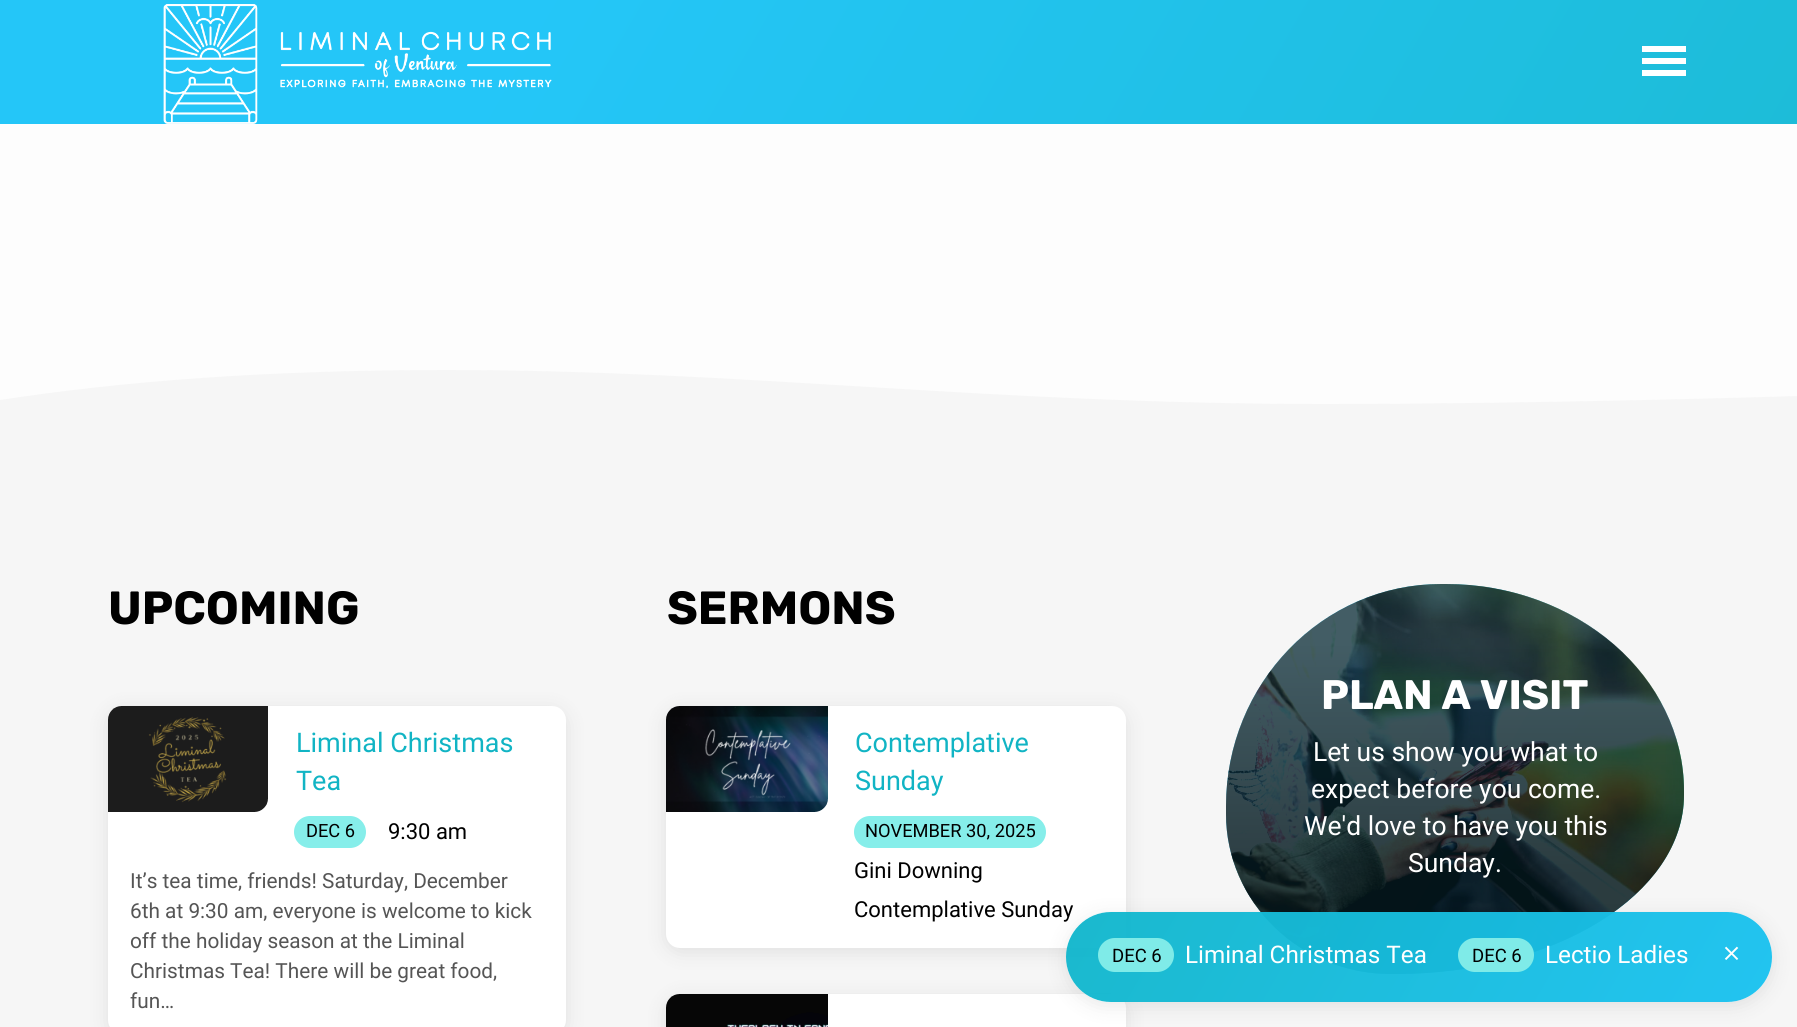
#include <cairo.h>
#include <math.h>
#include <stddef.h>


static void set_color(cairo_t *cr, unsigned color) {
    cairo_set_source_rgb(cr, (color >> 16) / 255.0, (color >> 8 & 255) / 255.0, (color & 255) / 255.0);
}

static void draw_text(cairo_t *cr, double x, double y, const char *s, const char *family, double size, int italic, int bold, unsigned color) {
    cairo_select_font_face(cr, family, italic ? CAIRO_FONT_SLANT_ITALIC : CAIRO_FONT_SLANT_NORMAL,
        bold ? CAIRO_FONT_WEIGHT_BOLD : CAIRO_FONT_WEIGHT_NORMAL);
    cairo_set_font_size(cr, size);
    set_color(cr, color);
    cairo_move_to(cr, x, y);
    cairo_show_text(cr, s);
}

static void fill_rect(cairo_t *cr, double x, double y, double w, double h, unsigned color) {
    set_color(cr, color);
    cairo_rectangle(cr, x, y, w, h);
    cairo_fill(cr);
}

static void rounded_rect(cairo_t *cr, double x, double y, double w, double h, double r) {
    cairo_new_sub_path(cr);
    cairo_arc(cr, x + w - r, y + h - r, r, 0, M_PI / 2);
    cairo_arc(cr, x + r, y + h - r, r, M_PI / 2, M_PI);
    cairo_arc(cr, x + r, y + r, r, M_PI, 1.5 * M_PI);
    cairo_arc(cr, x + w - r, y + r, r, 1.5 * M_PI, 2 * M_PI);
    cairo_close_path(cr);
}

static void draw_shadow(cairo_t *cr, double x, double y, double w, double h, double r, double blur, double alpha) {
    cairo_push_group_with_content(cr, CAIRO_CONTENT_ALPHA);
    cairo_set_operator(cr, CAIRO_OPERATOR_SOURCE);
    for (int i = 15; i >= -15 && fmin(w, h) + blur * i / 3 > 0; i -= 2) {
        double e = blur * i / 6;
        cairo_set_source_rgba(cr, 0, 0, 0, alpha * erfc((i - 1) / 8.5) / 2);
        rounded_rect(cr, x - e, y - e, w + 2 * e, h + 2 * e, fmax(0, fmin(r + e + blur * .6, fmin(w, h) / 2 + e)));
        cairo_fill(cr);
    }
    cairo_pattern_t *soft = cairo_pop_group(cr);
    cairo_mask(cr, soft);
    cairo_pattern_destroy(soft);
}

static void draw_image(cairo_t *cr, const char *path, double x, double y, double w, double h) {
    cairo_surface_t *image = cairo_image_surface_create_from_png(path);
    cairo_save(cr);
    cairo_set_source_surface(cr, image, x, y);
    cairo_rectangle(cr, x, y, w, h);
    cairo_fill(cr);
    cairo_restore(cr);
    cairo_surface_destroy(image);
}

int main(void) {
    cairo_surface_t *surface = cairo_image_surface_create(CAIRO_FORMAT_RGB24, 1797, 1027);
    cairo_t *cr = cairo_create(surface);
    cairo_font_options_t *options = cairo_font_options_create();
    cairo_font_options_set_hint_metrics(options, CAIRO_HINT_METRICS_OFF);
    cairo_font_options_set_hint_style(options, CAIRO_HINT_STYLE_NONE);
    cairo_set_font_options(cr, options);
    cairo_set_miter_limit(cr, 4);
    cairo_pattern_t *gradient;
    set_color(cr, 0xFDFDFD);
    cairo_paint(cr);
    gradient = cairo_pattern_create_linear(198, -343, 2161, 791);
    cairo_pattern_add_color_stop_rgba(gradient, 0.21, 0.114, 0.769, 0.969, 0.97);
    cairo_pattern_add_color_stop_rgba(gradient, 1, 0.067, 0.706, 0.769, 0.97);
    cairo_set_source(cr, gradient);
    cairo_pattern_destroy(gradient);
    cairo_rectangle(cr, 0, 0, 1797, 124);
    cairo_fill(cr);
    draw_image(cr, "assets/img1.png", 163, 4, 389, 120);
    fill_rect(cr, 1642, 46, 44, 6, 0xFFFFFF);
    fill_rect(cr, 1642, 58, 44, 6, 0xFFFFFF);
    fill_rect(cr, 1642, 70, 44, 6, 0xFFFFFF);
    fill_rect(cr, 0, 370, 1797, 657, 0xF6F6F6);
    set_color(cr, 0xFDFDFD);
    cairo_new_path(cr);
    cairo_move_to(cr, 0, 400);
    cairo_curve_to(cr, 123, 381, 269, 370, 446, 370);
    cairo_curve_to(cr, 743, 370, 985, 404, 1323, 404);
    cairo_curve_to(cr, 1547, 404, 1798, 396, 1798, 396);
    cairo_line_to(cr, 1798, 368);
    cairo_line_to(cr, 0, 368);
    cairo_fill(cr);
    draw_text(cr, 108, 624, "UPCOMING", "Rubik", 46.5, 0, 1, 0x000000);
    set_color(cr, 0x000000);
    draw_shadow(cr, 108, 710, 458, 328, 14, 10, 0.09);
    set_color(cr, 0xFFFFFF);
    rounded_rect(cr, 108, 706, 458, 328, 14);
    cairo_fill(cr);
    draw_image(cr, "assets/img2.png", 108, 706, 160, 106);
    draw_text(cr, 296, 752, "Liminal Christmas", "Roboto", 27, 0, 0, 0x11B4C4);
    draw_text(cr, 296, 790, "Tea", "Roboto", 27, 0, 0, 0x11B4C4);
    set_color(cr, 0x86EEEA);
    rounded_rect(cr, 294, 816, 72, 32, 16);
    cairo_fill(cr);
    draw_text(cr, 306, 837, "DEC 6", "Roboto", 18.25, 0, 0, 0x000000);
    draw_text(cr, 388, 839, "9:30 am", "Roboto", 22, 0, 0, 0x000000);
    draw_text(cr, 130, 888, "It’s tea time, friends! Saturday, December", "Roboto", 20.8, 0, 0, 0x555555);
    draw_text(cr, 130, 918, "6th at 9:30 am, everyone is welcome to kick", "Roboto", 20.8, 0, 0, 0x555555);
    draw_text(cr, 130, 948, "off the holiday season at the Liminal", "Roboto", 20.8, 0, 0, 0x555555);
    draw_text(cr, 130, 978, "Christmas Tea! There will be great food,", "Roboto", 20.8, 0, 0, 0x555555);
    draw_text(cr, 130, 1008, "fun…", "Roboto", 20.8, 0, 0, 0x555555);
    draw_text(cr, 667, 624, "SERMONS", "Rubik", 46.5, 0, 1, 0x000000);
    set_color(cr, 0x000000);
    draw_shadow(cr, 666, 710, 460, 242, 14, 10, 0.09);
    set_color(cr, 0xFFFFFF);
    rounded_rect(cr, 666, 706, 460, 242, 14);
    cairo_fill(cr);
    draw_image(cr, "assets/img3.png", 666, 706, 162, 106);
    draw_text(cr, 855, 752, "Contemplative", "Roboto", 27, 0, 0, 0x11B4C4);
    draw_text(cr, 855, 790, "Sunday", "Roboto", 27, 0, 0, 0x11B4C4);
    set_color(cr, 0x86EEEA);
    rounded_rect(cr, 854, 816, 192, 32, 16);
    cairo_fill(cr);
    draw_text(cr, 865, 837, "NOVEMBER 30, 2025", "Roboto", 18.25, 0, 0, 0x000000);
    draw_text(cr, 854, 878, "Gini Downing", "Roboto", 22, 0, 0, 0x000000);
    draw_text(cr, 854, 917, "Contemplative Sunday", "Roboto", 22, 0, 0, 0x000000);
    set_color(cr, 0x000000);
    draw_shadow(cr, 666, 998, 460, 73, 14, 10, 0.09);
    set_color(cr, 0xFFFFFF);
    rounded_rect(cr, 666, 994, 460, 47, 14);
    cairo_fill(cr);
    draw_image(cr, "assets/img4.png", 666, 994, 162, 33);
    gradient = cairo_pattern_create_linear(1184, 657, 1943, 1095);
    cairo_pattern_add_color_stop_rgba(gradient, 0.21, 0.141, 0.776, 0.969, 1);
    cairo_pattern_add_color_stop_rgba(gradient, 1, 0.094, 0.714, 0.776, 1);
    cairo_set_source(cr, gradient);
    cairo_pattern_destroy(gradient);
    cairo_new_path(cr);
    cairo_move_to(cr, 1441, 584);
    cairo_curve_to(cr, 1322, 584, 1226, 684, 1226, 806);
    cairo_line_to(cr, 1226, 814);
    cairo_curve_to(cr, 1226, 902, 1300, 974, 1391, 974);
    cairo_line_to(cr, 1395, 974);
    cairo_curve_to(cr, 1555, 974, 1684, 894, 1684, 795);
    cairo_line_to(cr, 1684, 791);
    cairo_curve_to(cr, 1684, 677, 1577, 584, 1446, 584);
    cairo_close_path(cr);
    cairo_fill(cr);
    draw_image(cr, "assets/img5.png", 1226, 584, 458, 390);
    cairo_set_source_rgba(cr, 0, 0, 0, 0.6);
    cairo_new_path(cr);
    cairo_move_to(cr, 1441, 584);
    cairo_curve_to(cr, 1322, 584, 1226, 684, 1226, 806);
    cairo_line_to(cr, 1226, 814);
    cairo_curve_to(cr, 1226, 902, 1300, 974, 1391, 974);
    cairo_line_to(cr, 1395, 974);
    cairo_curve_to(cr, 1555, 974, 1684, 894, 1684, 795);
    cairo_line_to(cr, 1684, 791);
    cairo_curve_to(cr, 1684, 677, 1577, 584, 1446, 584);
    cairo_close_path(cr);
    cairo_fill(cr);
    gradient = cairo_pattern_create_linear(1455, 584, 1455, 974);
    cairo_pattern_add_color_stop_rgba(gradient, 0, 0, 0, 0, 0);
    cairo_pattern_add_color_stop_rgba(gradient, 0.15, 0, 0, 0, 0);
    cairo_pattern_add_color_stop_rgba(gradient, 0.75, 0, 0, 0, 0.35);
    cairo_pattern_add_color_stop_rgba(gradient, 1, 0, 0, 0, 0.35);
    cairo_set_source(cr, gradient);
    cairo_pattern_destroy(gradient);
    cairo_new_path(cr);
    cairo_move_to(cr, 1441, 584);
    cairo_curve_to(cr, 1322, 584, 1226, 684, 1226, 806);
    cairo_line_to(cr, 1226, 814);
    cairo_curve_to(cr, 1226, 902, 1300, 974, 1391, 974);
    cairo_line_to(cr, 1395, 974);
    cairo_curve_to(cr, 1555, 974, 1684, 894, 1684, 795);
    cairo_line_to(cr, 1684, 791);
    cairo_curve_to(cr, 1684, 677, 1577, 584, 1446, 584);
    cairo_close_path(cr);
    cairo_fill(cr);
    draw_text(cr, 1321, 709, "PLAN A VISIT", "Rubik", 41.25, 0, 1, 0xFFFFFF);
    draw_text(cr, 1313, 761, "Let us show you what to", "Roboto", 26.5, 0, 0, 0xFFFFFF);
    draw_text(cr, 1311, 798, "expect before you come.", "Roboto", 26.5, 0, 0, 0xFFFFFF);
    draw_text(cr, 1304, 835, "We'd love to have you this", "Roboto", 26.5, 0, 0, 0xFFFFFF);
    draw_text(cr, 1408, 872, "Sunday.", "Roboto", 26.5, 0, 0, 0xFFFFFF);
    cairo_save(cr);
    cairo_set_fill_rule(cr, CAIRO_FILL_RULE_EVEN_ODD);
    cairo_new_path(cr);
    cairo_move_to(cr, 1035, 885);
    cairo_line_to(cr, 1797, 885);
    cairo_line_to(cr, 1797, 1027);
    cairo_line_to(cr, 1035, 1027);
    cairo_close_path(cr);
    cairo_move_to(cr, 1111, 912);
    cairo_line_to(cr, 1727, 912);
    cairo_curve_to(cr, 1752, 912, 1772, 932, 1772, 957);
    cairo_curve_to(cr, 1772, 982, 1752, 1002, 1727, 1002);
    cairo_line_to(cr, 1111, 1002);
    cairo_curve_to(cr, 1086, 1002, 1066, 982, 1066, 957);
    cairo_curve_to(cr, 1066, 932, 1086, 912, 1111, 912);
    cairo_close_path(cr);
    cairo_clip(cr);
    set_color(cr, 0x000000);
    draw_shadow(cr, 1066, 916, 706, 90, 45, 10, 0.09);
    cairo_restore(cr);
    gradient = cairo_pattern_create_linear(1021, 727, 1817, 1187);
    cairo_pattern_add_color_stop_rgba(gradient, 0, 0.067, 0.706, 0.769, 0.97);
    cairo_pattern_add_color_stop_rgba(gradient, 1, 0.114, 0.769, 0.969, 0.97);
    cairo_set_source(cr, gradient);
    cairo_pattern_destroy(gradient);
    rounded_rect(cr, 1066, 912, 706, 90, 45);
    cairo_fill(cr);
    cairo_set_source_rgba(cr, 0.51, 0.929, 0.914, 0.97);
    rounded_rect(cr, 1098, 938, 76, 34, 17);
    cairo_fill(cr);
    draw_text(cr, 1112, 962, "DEC 6", "Roboto", 18.5, 0, 0, 0x000000);
    draw_text(cr, 1185, 963, "Liminal Christmas Tea", "Roboto", 24.25, 0, 0, 0xFFFFFF);
    cairo_set_source_rgba(cr, 0.51, 0.929, 0.914, 0.97);
    rounded_rect(cr, 1458, 938, 76, 34, 17);
    cairo_fill(cr);
    draw_text(cr, 1472, 962, "DEC 6", "Roboto", 18.5, 0, 0, 0x000000);
    draw_text(cr, 1545, 963, "Lectio Ladies", "Roboto", 24.25, 0, 0, 0xFFFFFF);
    draw_image(cr, "assets/img6.png", 1724, 946, 15, 14);
    cairo_surface_write_to_png(surface, "output.png");
    cairo_font_options_destroy(options);
    cairo_destroy(cr);
    cairo_surface_destroy(surface);
    return 0;
}
